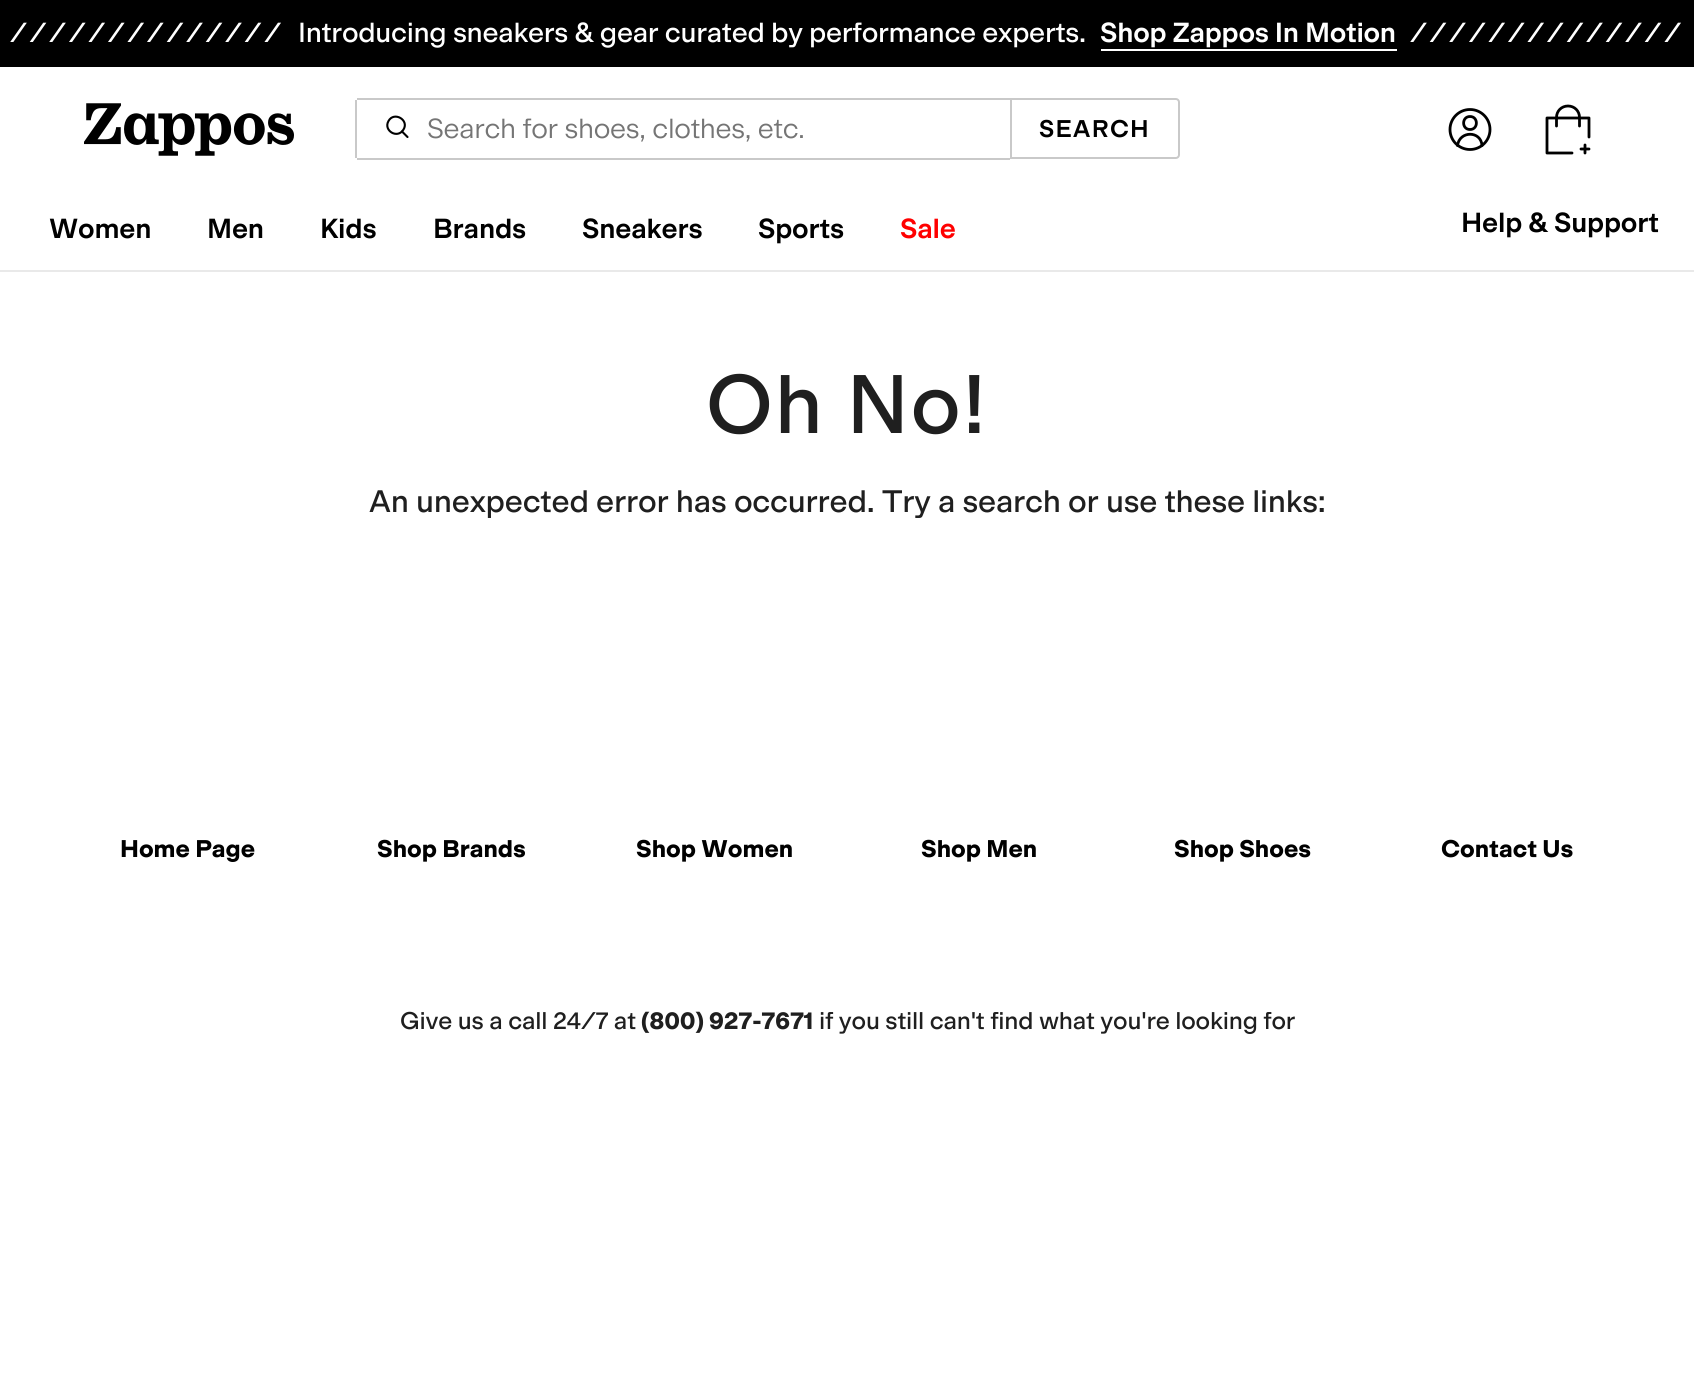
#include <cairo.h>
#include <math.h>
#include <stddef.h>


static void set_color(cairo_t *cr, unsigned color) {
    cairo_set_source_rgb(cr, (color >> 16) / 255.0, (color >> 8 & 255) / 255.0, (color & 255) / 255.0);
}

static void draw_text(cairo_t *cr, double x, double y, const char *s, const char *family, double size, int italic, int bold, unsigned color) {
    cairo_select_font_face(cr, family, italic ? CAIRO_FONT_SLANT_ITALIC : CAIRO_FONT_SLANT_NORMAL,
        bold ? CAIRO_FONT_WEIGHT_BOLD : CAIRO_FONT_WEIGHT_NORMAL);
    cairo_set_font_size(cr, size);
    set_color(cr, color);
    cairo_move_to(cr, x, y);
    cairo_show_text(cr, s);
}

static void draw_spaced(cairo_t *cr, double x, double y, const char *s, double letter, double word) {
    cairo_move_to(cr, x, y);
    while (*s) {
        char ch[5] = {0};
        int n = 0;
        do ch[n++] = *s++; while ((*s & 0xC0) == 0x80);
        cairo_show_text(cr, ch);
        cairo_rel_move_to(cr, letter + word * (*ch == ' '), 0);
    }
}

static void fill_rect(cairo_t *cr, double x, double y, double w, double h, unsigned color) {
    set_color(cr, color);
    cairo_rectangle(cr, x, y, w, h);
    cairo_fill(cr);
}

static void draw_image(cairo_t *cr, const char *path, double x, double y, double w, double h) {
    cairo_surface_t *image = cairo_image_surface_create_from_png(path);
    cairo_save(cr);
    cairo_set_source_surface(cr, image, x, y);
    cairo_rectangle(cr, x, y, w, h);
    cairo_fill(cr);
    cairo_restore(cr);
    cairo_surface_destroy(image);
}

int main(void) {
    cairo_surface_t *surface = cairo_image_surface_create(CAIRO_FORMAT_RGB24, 1694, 1394);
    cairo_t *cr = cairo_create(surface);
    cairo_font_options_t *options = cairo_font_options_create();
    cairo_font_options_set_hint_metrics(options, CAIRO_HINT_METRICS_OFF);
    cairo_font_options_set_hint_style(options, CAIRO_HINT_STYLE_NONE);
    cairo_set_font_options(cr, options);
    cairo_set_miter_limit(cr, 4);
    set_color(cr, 0xFFFFFF);
    cairo_paint(cr);
    fill_rect(cr, 0, 0, 1694, 67, 0x000000);
    cairo_select_font_face(cr, "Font", CAIRO_FONT_SLANT_NORMAL, CAIRO_FONT_WEIGHT_NORMAL);
    cairo_set_font_size(cr, 28);
    set_color(cr, 0xFFFFFF);
    draw_spaced(cr, 10, 42, "//////////////", 2.5, 0);
    draw_spaced(cr, 298, 42, "Introducing sneakers & gear curated by performance experts.", -0.28, 0);
    cairo_select_font_face(cr, "Font Medium", CAIRO_FONT_SLANT_NORMAL, CAIRO_FONT_WEIGHT_NORMAL);
    draw_spaced(cr, 1100, 42, "Shop Zappos In Motion", -0.28, 0);
    fill_rect(cr, 1101, 49, 296, 2, 0xFFFFFF);
    cairo_select_font_face(cr, "Font", CAIRO_FONT_SLANT_NORMAL, CAIRO_FONT_WEIGHT_NORMAL);
    draw_spaced(cr, 1410, 42, "//////////////", 2.5, 0);
    fill_rect(cr, 0, 270, 1694, 2, 0xE9E9E9);
    draw_image(cr, "assets/img1.png", 84, 103, 210, 53);
    cairo_new_path(cr);
    cairo_move_to(cr, 388.5, 121);
    cairo_curve_to(cr, 383, 130.5, 397.5, 139.5, 403.5, 129.5);
    cairo_curve_to(cr, 409.5, 120, 394, 111, 388.5, 121);
    set_color(cr, 0x000000);
    cairo_set_line_width(cr, 2.1);
    cairo_set_line_cap(cr, CAIRO_LINE_CAP_ROUND);
    cairo_set_line_join(cr, CAIRO_LINE_JOIN_ROUND);
    cairo_stroke(cr);
    cairo_new_path(cr);
    cairo_move_to(cr, 402, 131.5);
    cairo_line_to(cr, 407.5, 137);
    cairo_set_line_join(cr, CAIRO_LINE_JOIN_MITER);
    cairo_stroke(cr);
    fill_rect(cr, 357, 98, 653, 2, 0xC9C9C9);
    fill_rect(cr, 357, 158, 653, 2, 0xC9C9C9);
    fill_rect(cr, 355, 100, 2, 58, 0xC9C9C9);
    cairo_select_font_face(cr, "Font Light", CAIRO_FONT_SLANT_NORMAL, CAIRO_FONT_WEIGHT_NORMAL);
    set_color(cr, 0x757575);
    draw_spaced(cr, 427, 138, "Search for shoes, clothes, etc.", -0.28, 0);
    cairo_new_path(cr);
    cairo_move_to(cr, 1011, 99);
    cairo_line_to(cr, 1176, 99);
    cairo_curve_to(cr, 1177.5, 99, 1179, 100.5, 1179, 102);
    cairo_line_to(cr, 1179, 155);
    cairo_curve_to(cr, 1179, 156.5, 1177.5, 158, 1176, 158);
    cairo_line_to(cr, 1011, 158);
    cairo_close_path(cr);
    set_color(cr, 0xC9C9C9);
    cairo_set_line_width(cr, 2);
    cairo_set_line_cap(cr, CAIRO_LINE_CAP_BUTT);
    cairo_stroke(cr);
    cairo_select_font_face(cr, "Font Medium", CAIRO_FONT_SLANT_NORMAL, CAIRO_FONT_WEIGHT_NORMAL);
    cairo_set_font_size(cr, 24.5);
    set_color(cr, 0x000000);
    draw_spaced(cr, 1039, 137, "SEARCH", 1.25, 0);
    cairo_new_path(cr);
    cairo_move_to(cr, 1470, 129.5);
    cairo_curve_to(cr, 1461.5, 129.5, 1461.5, 116.5, 1470, 116.5);
    cairo_curve_to(cr, 1478.5, 116.5, 1478.5, 129.5, 1470, 129.5);
    cairo_move_to(cr, 1457.5, 145.5);
    cairo_curve_to(cr, 1459.5, 130.5, 1481, 130.5, 1482, 145.5);
    cairo_set_line_width(cr, 2.8);
    cairo_set_line_cap(cr, CAIRO_LINE_CAP_ROUND);
    cairo_set_line_join(cr, CAIRO_LINE_JOIN_ROUND);
    cairo_stroke(cr);
    cairo_arc(cr, 1470, 129.5, 20, 0, 2 * M_PI);
    cairo_set_line_cap(cr, CAIRO_LINE_CAP_BUTT);
    cairo_set_line_join(cr, CAIRO_LINE_JOIN_MITER);
    cairo_stroke(cr);
    cairo_new_path(cr);
    cairo_move_to(cr, 1579.5, 126);
    cairo_line_to(cr, 1579.5, 117.5);
    cairo_curve_to(cr, 1579.5, 111, 1574.5, 106, 1568, 106);
    cairo_curve_to(cr, 1561.5, 106, 1556.5, 111, 1556.5, 117.5);
    cairo_line_to(cr, 1556.5, 126);
    cairo_move_to(cr, 1581, 149);
    cairo_line_to(cr, 1589, 149);
    cairo_move_to(cr, 1585, 145);
    cairo_line_to(cr, 1585, 153);
    cairo_move_to(cr, 1589, 137);
    cairo_line_to(cr, 1589, 118);
    cairo_line_to(cr, 1547, 118);
    cairo_line_to(cr, 1547, 153);
    cairo_line_to(cr, 1572, 153);
    cairo_set_line_cap(cr, CAIRO_LINE_CAP_ROUND);
    cairo_set_line_join(cr, CAIRO_LINE_JOIN_ROUND);
    cairo_stroke(cr);
    cairo_set_font_size(cr, 28);
    draw_spaced(cr, 49, 238, "Women", -0.2, 0);
    draw_spaced(cr, 207, 238, "Men", -0.2, 0);
    draw_spaced(cr, 320, 238, "Kids", -0.2, 0);
    draw_spaced(cr, 433, 238, "Brands", -0.2, 0);
    draw_spaced(cr, 582, 238, "Sneakers", -0.2, 0);
    draw_spaced(cr, 758, 238, "Sports", -0.2, 0);
    set_color(cr, 0xFF0000);
    draw_spaced(cr, 900, 238, "Sale", -0.2, 0);
    set_color(cr, 0x000000);
    draw_spaced(cr, 1461, 232, "Help & Support", -0.2, 0);
    cairo_select_font_face(cr, "Font", CAIRO_FONT_SLANT_NORMAL, CAIRO_FONT_WEIGHT_NORMAL);
    cairo_set_font_size(cr, 84);
    set_color(cr, 0x1F1F1F);
    draw_spaced(cr, 706, 433, "Oh No!", 1.75, 0);
    cairo_set_font_size(cr, 31.5);
    draw_spaced(cr, 369, 512, "An unexpected error has occurred. Try a search or use these links:", -0.2, 0);
    draw_text(cr, 120, 857, "Home Page", "Font", 24.5, 0, 1, 0x000000);
    draw_text(cr, 377, 857, "Shop Brands", "Font", 24.5, 0, 1, 0x000000);
    draw_text(cr, 636, 857, "Shop Women", "Font", 24.5, 0, 1, 0x000000);
    draw_text(cr, 921, 857, "Shop Men", "Font", 24.5, 0, 1, 0x000000);
    draw_text(cr, 1174, 857, "Shop Shoes", "Font", 24.5, 0, 1, 0x000000);
    draw_text(cr, 1441, 857, "Contact Us", "Font", 24.5, 0, 1, 0x000000);
    cairo_select_font_face(cr, "Font", CAIRO_FONT_SLANT_NORMAL, CAIRO_FONT_WEIGHT_NORMAL);
    set_color(cr, 0x1F1F1F);
    draw_spaced(cr, 400, 1029, "Give us a call 24/7 at", -0.2, 0);
    cairo_select_font_face(cr, "Font", CAIRO_FONT_SLANT_NORMAL, CAIRO_FONT_WEIGHT_BOLD);
    draw_spaced(cr, 641, 1029, "(800) 927-7671", -0.2, 0);
    cairo_select_font_face(cr, "Font", CAIRO_FONT_SLANT_NORMAL, CAIRO_FONT_WEIGHT_NORMAL);
    draw_spaced(cr, 819, 1029, "if you still can't find what you're looking for", -0.2, 0);
    cairo_surface_write_to_png(surface, "output.png");
    cairo_font_options_destroy(options);
    cairo_destroy(cr);
    cairo_surface_destroy(surface);
    return 0;
}
